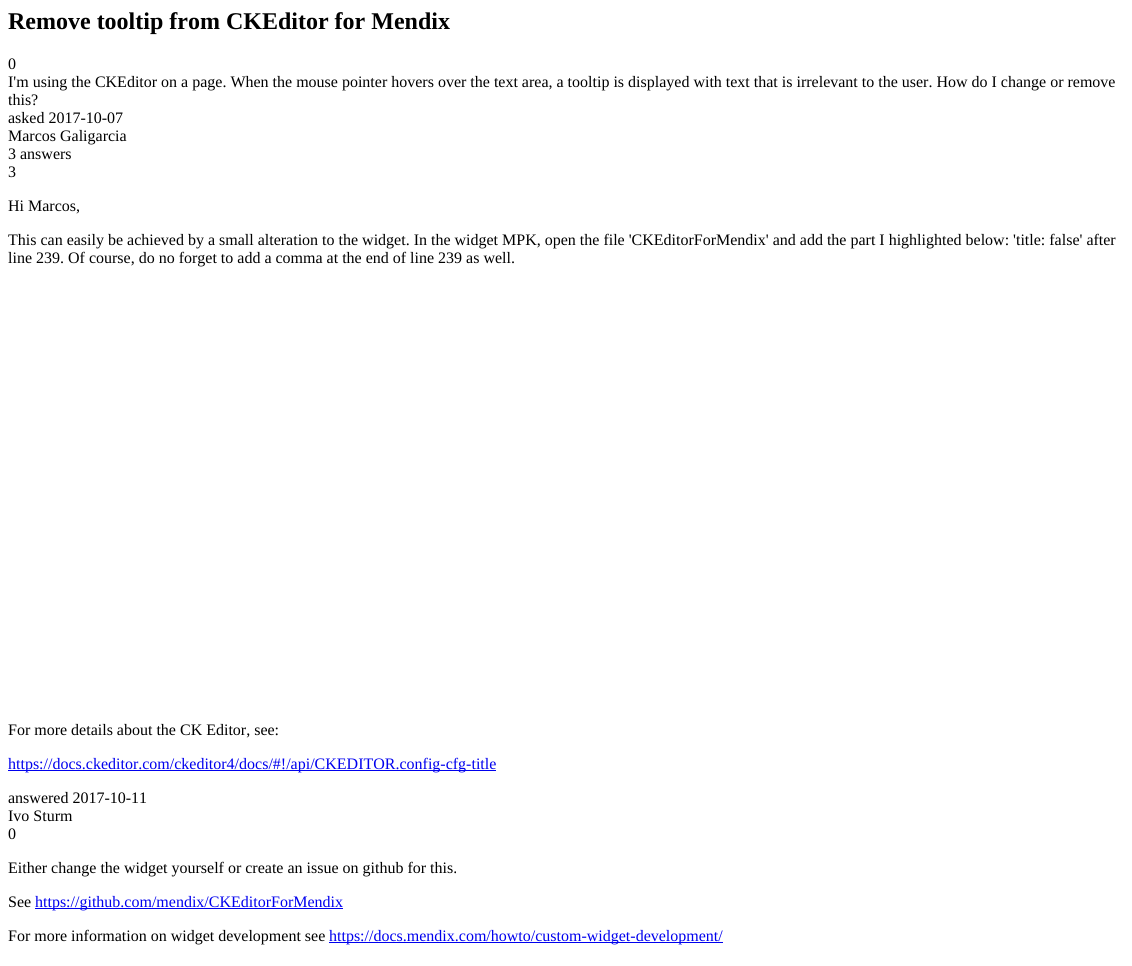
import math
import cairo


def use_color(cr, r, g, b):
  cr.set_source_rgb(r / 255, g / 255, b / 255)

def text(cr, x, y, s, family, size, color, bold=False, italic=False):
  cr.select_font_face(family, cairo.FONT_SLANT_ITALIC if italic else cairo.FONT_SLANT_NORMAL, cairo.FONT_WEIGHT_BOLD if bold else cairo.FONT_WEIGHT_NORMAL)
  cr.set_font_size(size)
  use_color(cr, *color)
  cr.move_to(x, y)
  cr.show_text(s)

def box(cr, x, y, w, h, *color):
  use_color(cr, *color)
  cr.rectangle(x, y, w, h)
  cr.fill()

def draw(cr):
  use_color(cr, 255, 255, 255)
  cr.paint()
  box(cr, 8, 770, 488, 1, 0, 0, 238)
  box(cr, 35, 908, 308, 1, 0, 0, 238)
  box(cr, 329, 942, 394, 1, 0, 0, 238)
  text(cr, 8, 29, "Remove tooltip from CKEditor for Mendix", "Liberation Serif", 24, (0, 0, 0), bold=True)
  text(cr, 8, 69, "0", "Liberation Serif", 16, (0, 0, 0))
  text(cr, 8, 87, "I'm using the CKEditor on a page. When the mouse pointer hovers over the text area, a tooltip is displayed with text that is irrelevant to the user. How do I change or remove", "Liberation Serif", 16, (0, 0, 0))
  text(cr, 8, 105, "this?", "Liberation Serif", 16, (0, 0, 0))
  text(cr, 8, 123, "asked 2017-10-07", "Liberation Serif", 16, (0, 0, 0))
  text(cr, 8, 141, "Marcos Galigarcia", "Liberation Serif", 16, (0, 0, 0))
  text(cr, 8, 159, "3 answers", "Liberation Serif", 16, (0, 0, 0))
  text(cr, 8, 177, "3", "Liberation Serif", 16, (0, 0, 0))
  text(cr, 8, 211, "Hi Marcos,", "Liberation Serif", 16, (0, 0, 0))
  text(cr, 8, 245, "This can easily be achieved by a small alteration to the widget. In the widget MPK, open the file 'CKEditorForMendix' and add the part I highlighted below: 'title: false' after", "Liberation Serif", 16, (0, 0, 0))
  text(cr, 8, 263, "line 239. Of course, do no forget to add a comma at the end of line 239 as well.", "Liberation Serif", 16, (0, 0, 0))
  text(cr, 8, 735, "For more details about the CK Editor, see:", "Liberation Serif", 16, (0, 0, 0))
  text(cr, 8, 769, "https://docs.ckeditor.com/ckeditor4/docs/#!/api/CKEDITOR.config-cfg-title", "Liberation Serif", 16, (0, 0, 238))
  text(cr, 8, 803, "answered 2017-10-11", "Liberation Serif", 16, (0, 0, 0))
  text(cr, 8, 821, "Ivo Sturm", "Liberation Serif", 16, (0, 0, 0))
  text(cr, 8, 839, "0", "Liberation Serif", 16, (0, 0, 0))
  text(cr, 8, 873, "Either change the widget yourself or create an issue on github for this.", "Liberation Serif", 16, (0, 0, 0))
  text(cr, 8, 907, "See", "Liberation Serif", 16, (0, 0, 0))
  text(cr, 35, 907, "https://github.com/mendix/CKEditorForMendix", "Liberation Serif", 16, (0, 0, 238))
  text(cr, 8, 941, "For more information on widget development see", "Liberation Serif", 16, (0, 0, 0))
  text(cr, 329, 941, "https://docs.mendix.com/howto/custom-widget-development/", "Liberation Serif", 16, (0, 0, 238))


surface = cairo.ImageSurface(cairo.FORMAT_RGB24, 1132, 966)
cr = cairo.Context(surface)
options = cairo.FontOptions()
options.set_hint_metrics(cairo.HINT_METRICS_OFF)
options.set_hint_style(cairo.HINT_STYLE_NONE)
cr.set_font_options(options)
cr.set_miter_limit(4)
draw(cr)
surface.write_to_png("out.png")
